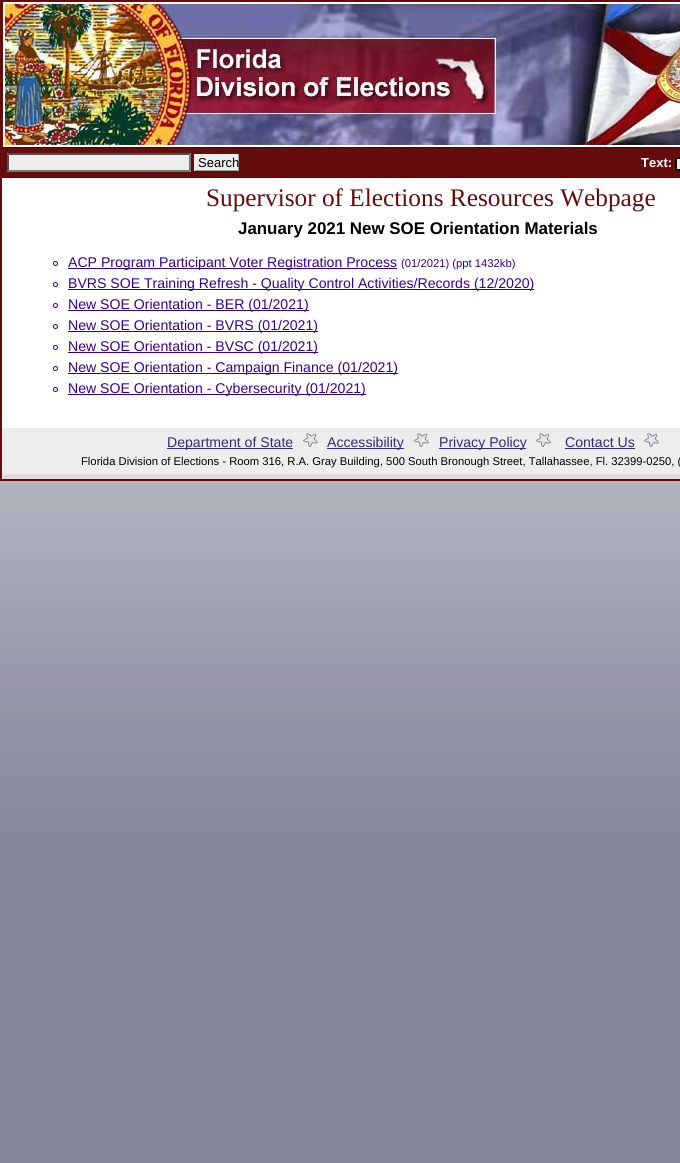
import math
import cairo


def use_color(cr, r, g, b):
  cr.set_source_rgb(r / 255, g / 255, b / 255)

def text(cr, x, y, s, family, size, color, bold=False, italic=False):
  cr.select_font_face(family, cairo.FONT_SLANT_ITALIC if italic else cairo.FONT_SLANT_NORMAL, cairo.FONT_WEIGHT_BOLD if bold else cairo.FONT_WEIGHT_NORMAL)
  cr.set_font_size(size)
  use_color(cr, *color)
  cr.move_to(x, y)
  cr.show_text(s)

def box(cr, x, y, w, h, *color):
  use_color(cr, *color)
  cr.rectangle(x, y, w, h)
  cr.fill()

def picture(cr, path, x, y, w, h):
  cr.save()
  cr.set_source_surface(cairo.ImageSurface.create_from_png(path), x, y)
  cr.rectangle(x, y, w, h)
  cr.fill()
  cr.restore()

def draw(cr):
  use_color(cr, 130, 132, 153)
  cr.paint()
  picture(cr, "img_01.png", 0, 481, 680, 351)
  cr.rectangle(1, 1, 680, 479)
  use_color(cr, 101, 12, 13)
  cr.stroke()
  box(cr, 2, 2, 1, 145, 101, 12, 13)
  picture(cr, "img_02.png", 3, 2, 677, 145)
  box(cr, 2, 147, 678, 1, 64, 8, 9)
  box(cr, 2, 177, 678, 1, 64, 8, 9)
  box(cr, 2, 148, 678, 29, 101, 12, 13)
  box(cr, 7, 153, 184, 19, 237, 237, 237)
  use_color(cr, 79, 79, 79)
  cr.new_path()
  cr.move_to(7, 153)
  cr.line_to(191, 153)
  cr.line_to(189, 155)
  cr.line_to(9, 155)
  cr.close_path()
  cr.fill()
  use_color(cr, 118, 118, 118)
  cr.new_path()
  cr.move_to(191, 153)
  cr.line_to(191, 172)
  cr.line_to(189, 170)
  cr.line_to(189, 155)
  cr.close_path()
  cr.fill()
  cr.new_path()
  cr.move_to(191, 172)
  cr.line_to(7, 172)
  cr.line_to(9, 170)
  cr.line_to(189, 170)
  cr.close_path()
  cr.fill()
  use_color(cr, 79, 79, 79)
  cr.new_path()
  cr.move_to(7, 172)
  cr.line_to(7, 153)
  cr.line_to(9, 155)
  cr.line_to(9, 170)
  cr.close_path()
  cr.fill()
  box(cr, 195, 154, 43, 16, 237, 237, 237)
  box(cr, 238, 154, 1, 17, 159, 159, 159)
  box(cr, 194, 170, 45, 1, 159, 159, 159)
  box(cr, 194, 154, 1, 17, 238, 238, 238)
  use_color(cr, 237, 237, 237)
  cr.rectangle(676, 158, 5, 12)
  cr.fill_preserve()
  use_color(cr, 0, 0, 0)
  cr.stroke()
  box(cr, 2, 178, 678, 250, 255, 255, 255)
  box(cr, 2, 474, 678, 5, 225, 220, 217)
  cr.arc(55.5, 263.5, 2, 0, 2 * math.pi)
  use_color(cr, 51, 0, 153)
  cr.set_line_width(1)
  cr.stroke()
  box(cr, 68, 268, 329, 1, 51, 0, 153)
  cr.arc(55.5, 284.5, 2, 0, 2 * math.pi)
  cr.stroke()
  box(cr, 68, 289, 466, 1, 51, 0, 153)
  cr.arc(55.5, 305.5, 2, 0, 2 * math.pi)
  cr.stroke()
  box(cr, 68, 310, 241, 1, 51, 0, 153)
  cr.arc(55.5, 326.5, 2, 0, 2 * math.pi)
  cr.stroke()
  box(cr, 68, 331, 250, 1, 51, 0, 153)
  cr.arc(55.5, 347.5, 2, 0, 2 * math.pi)
  cr.stroke()
  box(cr, 68, 352, 250, 1, 51, 0, 153)
  cr.arc(55.5, 368.5, 2, 0, 2 * math.pi)
  cr.stroke()
  box(cr, 68, 373, 330, 1, 51, 0, 153)
  cr.arc(55.5, 389.5, 2, 0, 2 * math.pi)
  cr.stroke()
  box(cr, 68, 394, 298, 1, 51, 0, 153)
  box(cr, 2, 428, 678, 46, 237, 237, 237)
  box(cr, 167, 448, 126, 1, 53, 42, 118)
  picture(cr, "img_03.png", 303, 433, 15, 14)
  box(cr, 327, 448, 77, 1, 53, 42, 118)
  picture(cr, "img_03.png", 414, 433, 15, 14)
  box(cr, 439, 448, 87, 1, 53, 42, 118)
  picture(cr, "img_03.png", 536, 433, 15, 14)
  box(cr, 565, 448, 70, 1, 53, 42, 118)
  picture(cr, "img_03.png", 644, 433, 15, 14)
  text(cr, 198, 167, "Search", "Liberation Sans", 13, (0, 0, 0))
  text(cr, 641, 167, "Text:", "Liberation Sans", 13, (255, 255, 255), bold=True)
  text(cr, 206, 206, "Supervisor of Elections Resources Webpage", "Liberation Serif", 25.3, (101, 12, 13))
  text(cr, 238, 234, "January 2021 New SOE Orientation Materials", "Liberation Sans", 16.9, (0, 0, 0), bold=True)
  text(cr, 68, 267, "ACP Program Participant Voter Registration Process", "Liberation Sans", 14.1, (51, 0, 153))
  text(cr, 401, 267, "(01/2021) (ppt 1432kb)", "Liberation Sans", 11.25, (51, 0, 153))
  text(cr, 68, 288, "BVRS SOE Training Refresh - Quality Control Activities/Records (12/2020)", "Liberation Sans", 14.1, (51, 0, 153))
  text(cr, 68, 309, "New SOE Orientation - BER (01/2021)", "Liberation Sans", 14.1, (51, 0, 153))
  text(cr, 68, 330, "New SOE Orientation - BVRS (01/2021)", "Liberation Sans", 14.1, (51, 0, 153))
  text(cr, 68, 351, "New SOE Orientation - BVSC (01/2021)", "Liberation Sans", 14.1, (51, 0, 153))
  text(cr, 68, 372, "New SOE Orientation - Campaign Finance (01/2021)", "Liberation Sans", 14.1, (51, 0, 153))
  text(cr, 68, 393, "New SOE Orientation - Cybersecurity (01/2021)", "Liberation Sans", 14.1, (51, 0, 153))
  text(cr, 167, 447, "Department of State", "Liberation Sans", 14.1, (53, 42, 118))
  text(cr, 327, 447, "Accessibility", "Liberation Sans", 14.1, (53, 42, 118))
  text(cr, 439, 447, "Privacy Policy", "Liberation Sans", 14.1, (53, 42, 118))
  text(cr, 565, 447, "Contact Us", "Liberation Sans", 14.1, (53, 42, 118))
  text(cr, 81, 465, "Florida Division of Elections - Room 316, R.A. Gray Building, 500 South Bronough Street, Tallahassee, Fl. 32399-0250, (", "Liberation Sans", 11.25, (0, 0, 0))


surface = cairo.ImageSurface(cairo.FORMAT_RGB24, 680, 1163)
cr = cairo.Context(surface)
options = cairo.FontOptions()
options.set_hint_metrics(cairo.HINT_METRICS_OFF)
options.set_hint_style(cairo.HINT_STYLE_NONE)
cr.set_font_options(options)
cr.set_miter_limit(4)
draw(cr)
surface.write_to_png("out.png")
